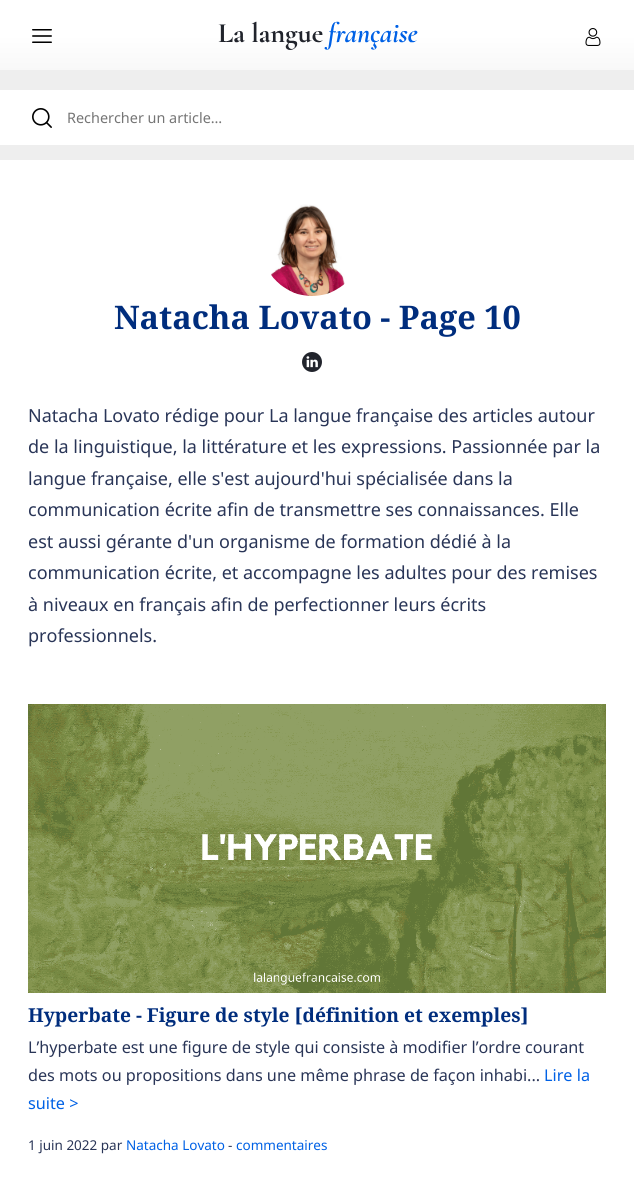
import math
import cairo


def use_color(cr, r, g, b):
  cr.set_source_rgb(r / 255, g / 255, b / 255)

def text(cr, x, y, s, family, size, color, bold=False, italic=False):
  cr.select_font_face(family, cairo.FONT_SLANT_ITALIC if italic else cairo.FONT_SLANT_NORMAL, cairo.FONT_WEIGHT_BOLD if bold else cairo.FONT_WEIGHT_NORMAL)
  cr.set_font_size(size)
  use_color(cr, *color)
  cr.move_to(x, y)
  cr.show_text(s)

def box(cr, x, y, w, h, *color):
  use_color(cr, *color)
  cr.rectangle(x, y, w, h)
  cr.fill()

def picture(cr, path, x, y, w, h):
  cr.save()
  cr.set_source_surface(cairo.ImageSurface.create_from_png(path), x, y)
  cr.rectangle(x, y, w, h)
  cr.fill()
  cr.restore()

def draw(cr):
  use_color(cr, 238, 238, 238)
  cr.paint()
  gradient = cairo.LinearGradient(317, 70, 317, 0)
  gradient.add_color_stop_rgba(0, 0.973, 0.973, 0.973, 1)
  gradient.add_color_stop_rgba(0.5, 1, 1, 1, 1)
  cr.set_source(gradient)
  cr.rectangle(0, 0, 634, 70)
  cr.fill()
  picture(cr, "img_01.png", 32, 29, 20, 14)
  picture(cr, "img_02.png", 218, 21, 200, 29)
  picture(cr, "img_03.png", 585, 28, 16, 18)
  box(cr, 0, 90, 634, 55, 255, 255, 255)
  picture(cr, "img_04.png", 32, 108, 20, 20)
  box(cr, 0, 160, 634, 1037, 255, 255, 255)
  picture(cr, "img_05.png", 271, 204, 74, 92)
  picture(cr, "img_06.png", 302, 352, 20, 20)
  picture(cr, "img_07.png", 28, 704, 578, 289)
  text(cr, 67, 123, "Rechercher un article…", "Noto Sans", 14.4, (117, 117, 117))
  text(cr, 114, 329, "Natacha Lovato - Page 10", "Noto Serif", 32.5, (0, 45, 125), bold=True)
  text(cr, 28, 422, "Natacha Lovato rédige pour La langue française des articles autour", "Noto Sans", 18, (41, 53, 87))
  text(cr, 28, 453, "de la linguistique, la littérature et les expressions. Passionnée par la", "Noto Sans", 18, (41, 53, 87))
  text(cr, 28, 485, "langue française, elle s'est aujourd'hui spécialisée dans la", "Noto Sans", 18, (41, 53, 87))
  text(cr, 28, 516, "communication écrite afin de transmettre ses connaissances. Elle", "Noto Sans", 18, (41, 53, 87))
  text(cr, 28, 548, "est aussi gérante d'un organisme de formation dédié à la", "Noto Sans", 18, (41, 53, 87))
  text(cr, 28, 579, "communication écrite, et accompagne les adultes pour des remises", "Noto Sans", 18, (41, 53, 87))
  text(cr, 28, 611, "à niveaux en français afin de perfectionner leurs écrits", "Noto Sans", 18, (41, 53, 87))
  text(cr, 28, 642, "professionnels.", "Noto Sans", 18, (41, 53, 87))
  text(cr, 28, 1022, "Hyperbate - Figure de style [définition et exemples]", "Noto Serif", 19.2, (0, 45, 125), bold=True)
  text(cr, 28, 1053, "L’hyperbate est une figure de style qui consiste à modifier l’ordre courant", "Noto Sans", 16.2, (41, 53, 87))
  text(cr, 28, 1081, "des mots ou propositions dans une même phrase de façon inhabi...", "Noto Sans", 16.2, (41, 53, 87))
  text(cr, 544, 1081, "Lire la", "Noto Sans", 16.2, (0, 97, 229))
  text(cr, 28, 1109, "suite >", "Noto Sans", 16.2, (0, 97, 229))
  text(cr, 28, 1150, "1 juin 2022 par", "Noto Sans", 13.5, (41, 53, 87))
  text(cr, 126, 1150, "Natacha Lovato", "Noto Sans", 13.5, (0, 97, 229))
  text(cr, 228, 1150, "-", "Noto Sans", 13.5, (41, 53, 87))
  text(cr, 236, 1150, "commentaires", "Noto Sans", 13.5, (0, 97, 229))


surface = cairo.ImageSurface(cairo.FORMAT_RGB24, 634, 1197)
cr = cairo.Context(surface)
options = cairo.FontOptions()
options.set_hint_metrics(cairo.HINT_METRICS_OFF)
options.set_hint_style(cairo.HINT_STYLE_NONE)
cr.set_font_options(options)
cr.set_miter_limit(4)
draw(cr)
surface.write_to_png("out.png")
